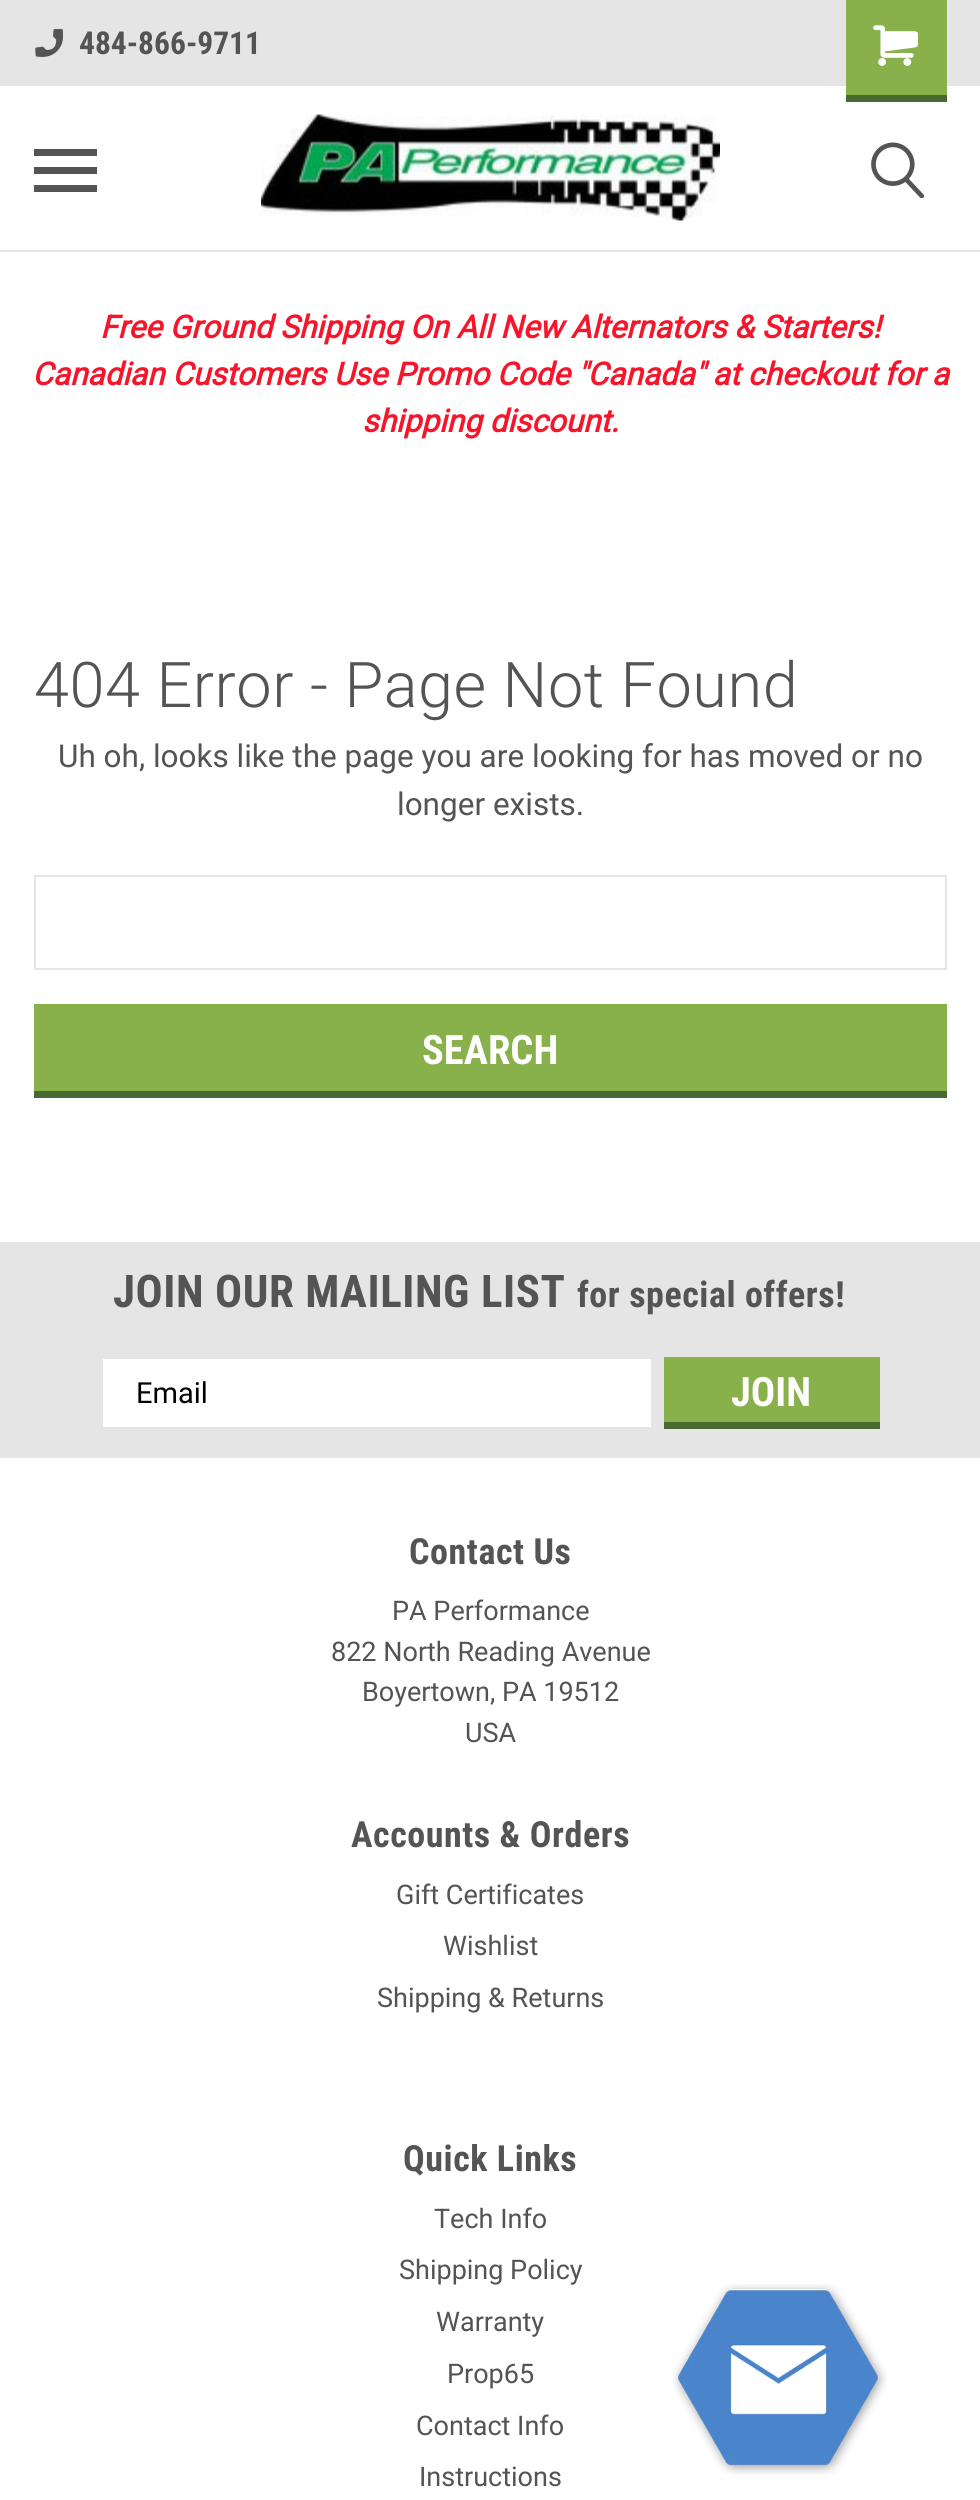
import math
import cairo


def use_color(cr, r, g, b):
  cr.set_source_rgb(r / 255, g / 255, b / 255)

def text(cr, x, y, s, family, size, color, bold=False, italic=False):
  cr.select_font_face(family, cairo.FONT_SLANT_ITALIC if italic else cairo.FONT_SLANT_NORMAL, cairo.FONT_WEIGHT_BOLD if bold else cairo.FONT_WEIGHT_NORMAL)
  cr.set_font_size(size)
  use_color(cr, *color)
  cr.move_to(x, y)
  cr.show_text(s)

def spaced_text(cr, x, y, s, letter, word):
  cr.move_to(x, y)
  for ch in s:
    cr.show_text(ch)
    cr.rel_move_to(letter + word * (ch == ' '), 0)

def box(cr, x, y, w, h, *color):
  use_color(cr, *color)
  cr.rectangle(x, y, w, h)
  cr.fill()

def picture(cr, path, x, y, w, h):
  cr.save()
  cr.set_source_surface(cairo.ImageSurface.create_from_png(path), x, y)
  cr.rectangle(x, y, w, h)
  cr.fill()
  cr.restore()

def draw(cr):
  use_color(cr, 255, 255, 255)
  cr.paint()
  box(cr, 0, 250, 980, 2, 229, 229, 229)
  box(cr, 0, 0, 980, 86, 229, 229, 229)
  picture(cr, "img_01.png", 35, 29, 28, 28)
  box(cr, 846, 0, 101, 95, 136, 176, 75)
  box(cr, 846, 95, 101, 7, 71, 106, 48)
  picture(cr, "img_02.png", 873, 25, 45, 41)
  box(cr, 34, 167, 63, 7, 84, 84, 84)
  box(cr, 34, 149, 63, 7, 84, 84, 84)
  box(cr, 34, 185, 63, 7, 84, 84, 84)
  picture(cr, "img_03.png", 261, 114, 459, 107)
  picture(cr, "img_04.png", 871, 142, 54, 56)
  cr.rectangle(35, 876, 911, 93)
  use_color(cr, 229, 229, 229)
  cr.stroke()
  box(cr, 34, 1004, 913, 87, 136, 176, 75)
  box(cr, 34, 1091, 913, 7, 71, 106, 48)
  box(cr, 0, 1242, 980, 216, 229, 229, 229)
  box(cr, 103, 1359, 548, 68, 255, 255, 255)
  box(cr, 664, 1357, 216, 65, 136, 176, 75)
  box(cr, 664, 1422, 216, 7, 71, 106, 48)
  picture(cr, "img_05.png", 673, 2284, 214, 191)
  text(cr, 79, 54, "484-866-9711", "Roboto Condensed", 31.5, (84, 84, 84), bold=True)
  text(cr, 100, 338, "Free Ground Shipping On All New Alternators & Starters!", "Roboto", 31.5, (245, 22, 43), bold=True, italic=True)
  text(cr, 32, 385, "Canadian Customers Use Promo Code \"Canada\" at checkout for a", "Roboto", 31.5, (245, 22, 43), bold=True, italic=True)
  text(cr, 362, 432, "shipping discount.", "Roboto", 31.5, (245, 22, 43), bold=True, italic=True)
  cr.select_font_face("Roboto Light")
  cr.set_font_size(63)
  use_color(cr, 84, 84, 84)
  spaced_text(cr, 34, 707, "404 Error - Page Not Found", 0.55, 0)
  text(cr, 58, 767, "Uh oh, looks like the page you are looking for has moved or no", "Roboto", 31.5, (84, 84, 84))
  text(cr, 397, 815, "longer exists.", "Roboto", 31.5, (84, 84, 84))
  text(cr, 422, 1064, "SEARCH", "Roboto Condensed", 40.5, (255, 255, 255), bold=True)
  cr.set_font_size(45)
  use_color(cr, 84, 84, 84)
  spaced_text(cr, 113, 1307, "JOIN OUR MAILING LIST", 0.55, 0)
  cr.set_font_size(36)
  spaced_text(cr, 577, 1307, "for special offers!", 0.55, 0)
  text(cr, 136, 1403, "Email", "Roboto", 29, (0, 0, 0))
  text(cr, 731, 1406, "JOIN", "Roboto Condensed", 40.5, (255, 255, 255), bold=True)
  cr.set_font_size(36)
  use_color(cr, 84, 84, 84)
  spaced_text(cr, 409, 1564, "Contact Us", 0.55, 0)
  text(cr, 392, 1620, "PA Performance", "Roboto", 27, (84, 84, 84))
  text(cr, 331, 1661, "822 North Reading Avenue", "Roboto", 27, (84, 84, 84))
  text(cr, 362, 1701, "Boyertown, PA 19512", "Roboto", 27, (84, 84, 84))
  text(cr, 465, 1742, "USA", "Roboto", 27, (84, 84, 84))
  cr.select_font_face("Roboto Condensed", cairo.FONT_SLANT_NORMAL, cairo.FONT_WEIGHT_BOLD)
  cr.set_font_size(36)
  spaced_text(cr, 351, 1847, "Accounts & Orders", 0.55, 0)
  text(cr, 396, 1904, "Gift Certificates", "Roboto", 27, (84, 84, 84))
  text(cr, 443, 1955, "Wishlist", "Roboto", 27, (84, 84, 84))
  text(cr, 377, 2007, "Shipping & Returns", "Roboto", 27, (84, 84, 84))
  cr.select_font_face("Roboto Condensed", cairo.FONT_SLANT_NORMAL, cairo.FONT_WEIGHT_BOLD)
  cr.set_font_size(36)
  spaced_text(cr, 403, 2171, "Quick Links", 0.55, 0)
  text(cr, 434, 2228, "Tech Info", "Roboto", 27, (84, 84, 84))
  text(cr, 399, 2279, "Shipping Policy", "Roboto", 27, (84, 84, 84))
  text(cr, 436, 2331, "Warranty", "Roboto", 27, (84, 84, 84))
  text(cr, 447, 2383, "Prop65", "Roboto", 27, (84, 84, 84))
  text(cr, 416, 2435, "Contact Info", "Roboto", 27, (84, 84, 84))
  text(cr, 419, 2486, "Instructions", "Roboto", 27, (84, 84, 84))


surface = cairo.ImageSurface(cairo.FORMAT_RGB24, 980, 2500)
cr = cairo.Context(surface)
options = cairo.FontOptions()
options.set_hint_metrics(cairo.HINT_METRICS_OFF)
options.set_hint_style(cairo.HINT_STYLE_NONE)
cr.set_font_options(options)
cr.set_miter_limit(4)
draw(cr)
surface.write_to_png("out.png")
